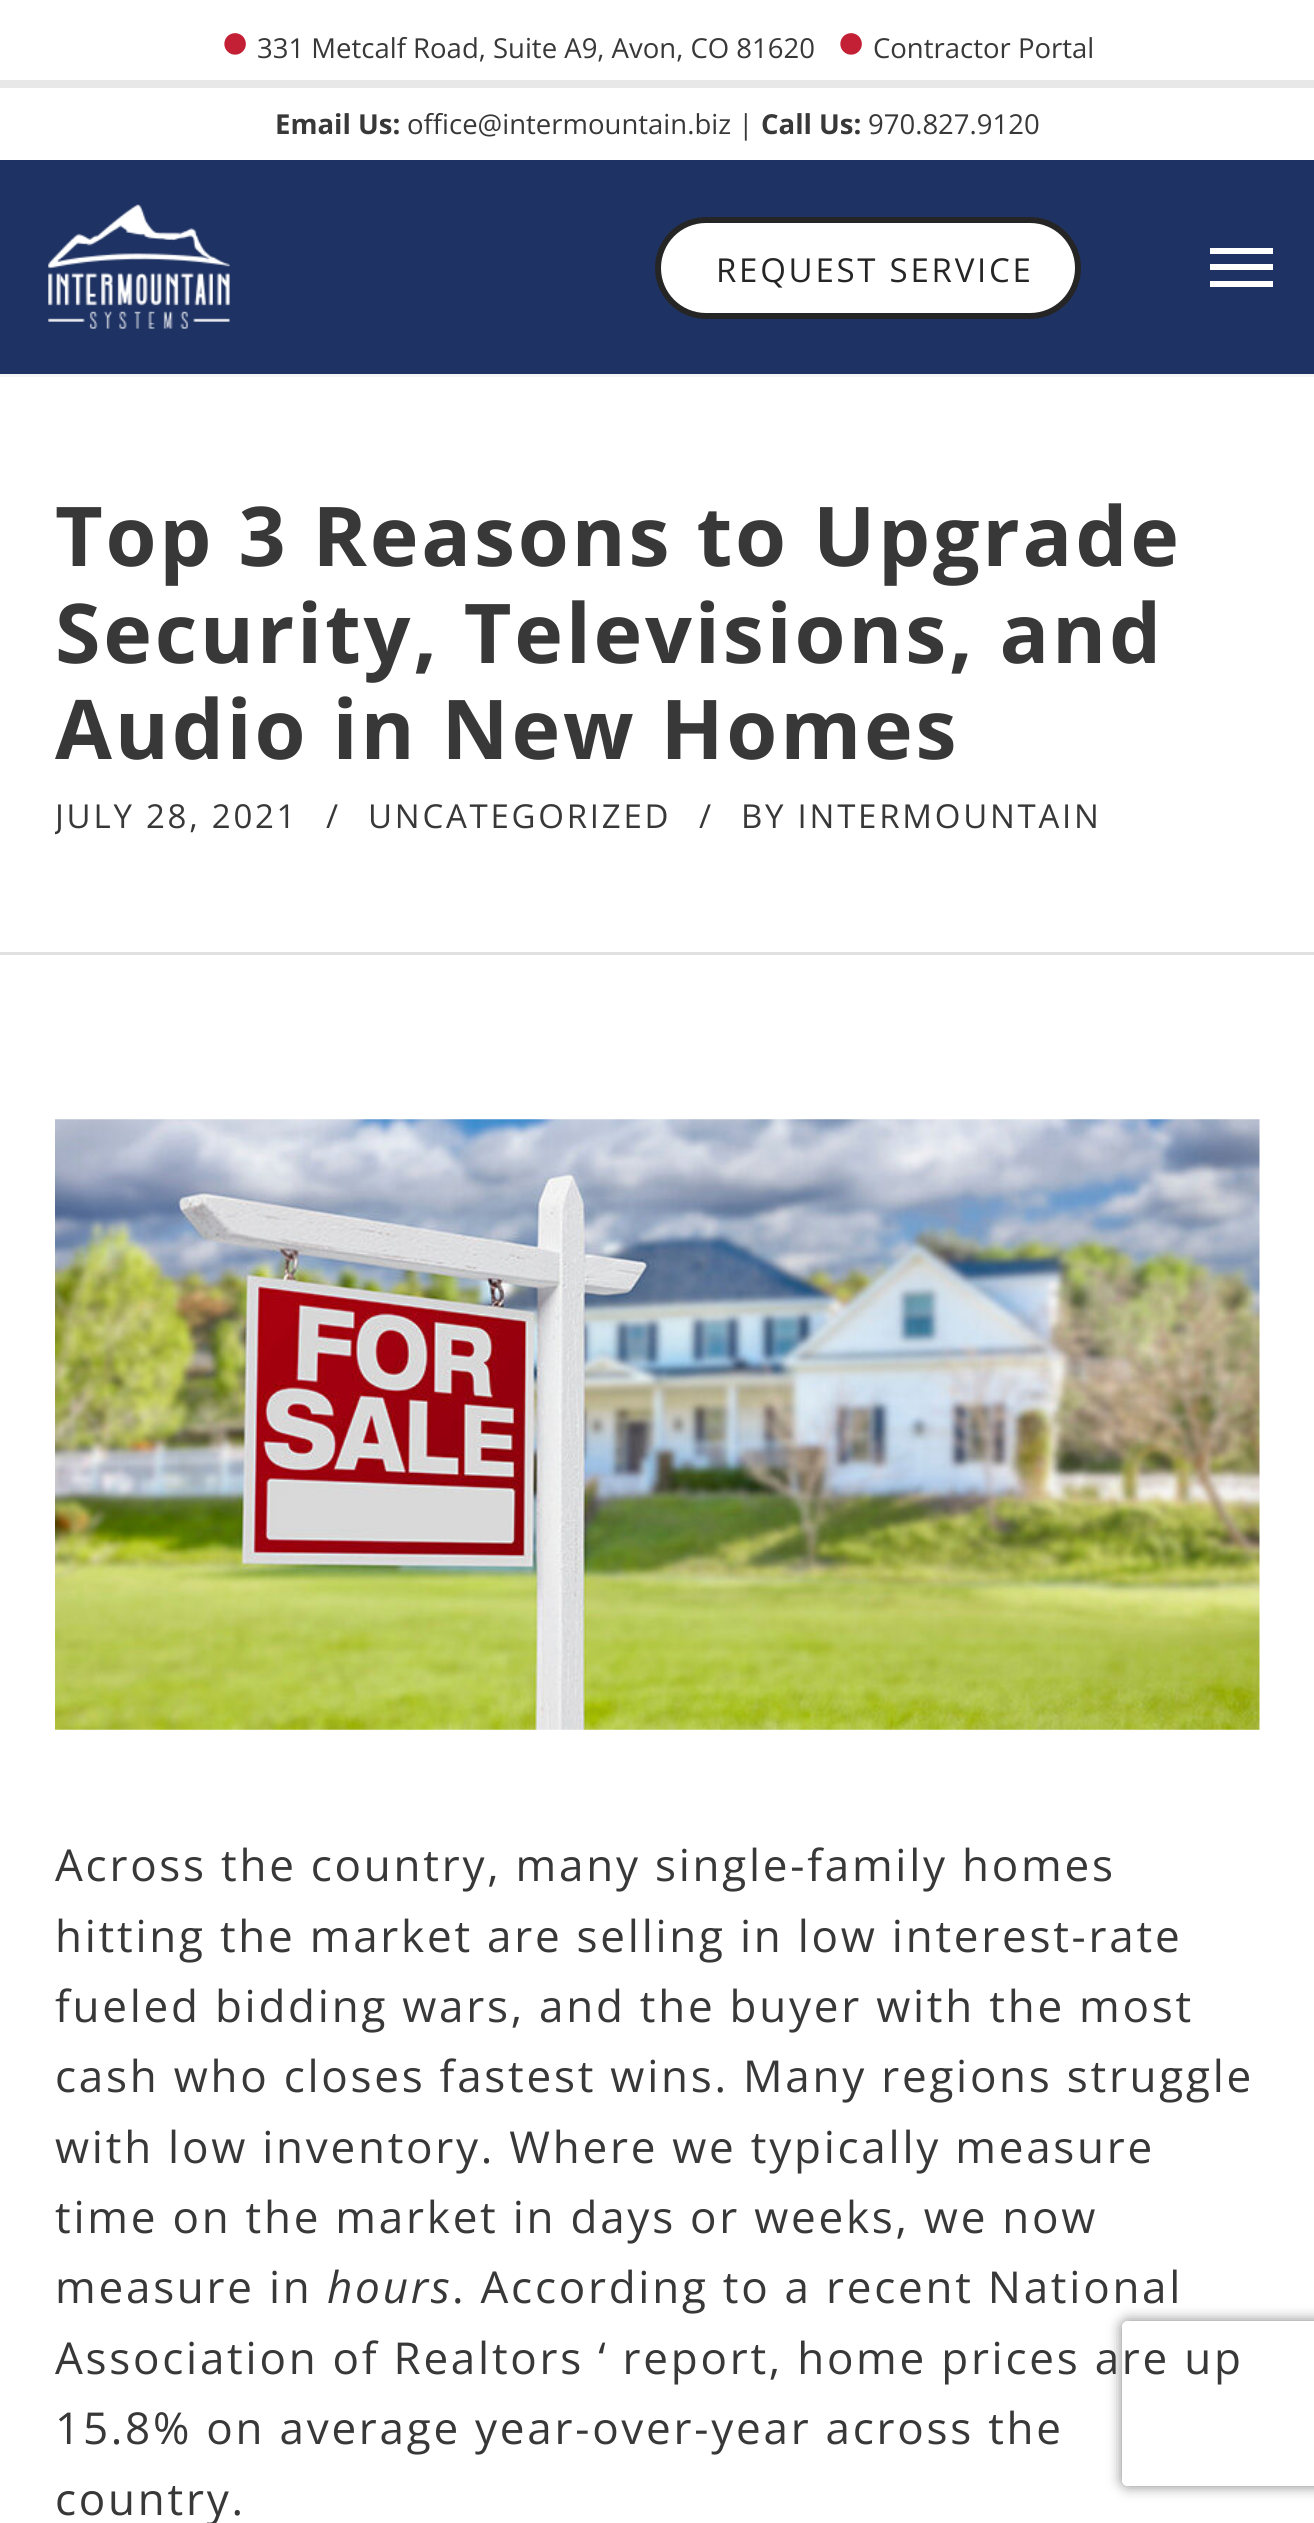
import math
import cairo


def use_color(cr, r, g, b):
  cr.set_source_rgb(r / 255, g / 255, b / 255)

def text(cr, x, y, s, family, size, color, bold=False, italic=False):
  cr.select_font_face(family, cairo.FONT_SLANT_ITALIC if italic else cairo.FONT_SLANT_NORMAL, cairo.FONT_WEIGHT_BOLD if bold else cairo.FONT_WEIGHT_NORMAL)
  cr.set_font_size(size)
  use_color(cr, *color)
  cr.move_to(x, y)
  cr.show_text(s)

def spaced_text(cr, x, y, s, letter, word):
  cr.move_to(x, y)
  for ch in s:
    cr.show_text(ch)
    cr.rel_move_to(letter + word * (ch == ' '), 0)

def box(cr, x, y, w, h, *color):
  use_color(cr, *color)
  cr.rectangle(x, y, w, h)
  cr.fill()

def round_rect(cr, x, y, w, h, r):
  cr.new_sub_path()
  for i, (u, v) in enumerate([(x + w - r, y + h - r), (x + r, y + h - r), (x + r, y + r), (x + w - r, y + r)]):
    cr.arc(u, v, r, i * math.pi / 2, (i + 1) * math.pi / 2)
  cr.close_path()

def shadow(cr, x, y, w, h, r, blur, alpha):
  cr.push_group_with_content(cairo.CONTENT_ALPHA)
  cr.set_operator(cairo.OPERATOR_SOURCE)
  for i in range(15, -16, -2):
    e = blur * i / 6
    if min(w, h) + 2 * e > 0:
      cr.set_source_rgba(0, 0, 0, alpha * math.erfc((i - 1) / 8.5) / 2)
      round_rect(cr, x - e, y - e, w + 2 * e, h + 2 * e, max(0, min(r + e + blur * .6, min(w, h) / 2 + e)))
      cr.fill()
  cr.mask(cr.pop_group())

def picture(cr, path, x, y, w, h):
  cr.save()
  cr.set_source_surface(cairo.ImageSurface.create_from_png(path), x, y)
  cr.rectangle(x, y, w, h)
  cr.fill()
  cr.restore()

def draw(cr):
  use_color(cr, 255, 255, 255)
  cr.paint()
  box(cr, 0, 374, 1314, 3, 245, 245, 245)
  box(cr, 0, 80, 1314, 8, 232, 232, 232)
  box(cr, 0, 160, 1314, 214, 30, 50, 99)
  use_color(cr, 255, 255, 255)
  round_rect(cr, 658, 220, 420, 96, 48)
  cr.fill_preserve()
  use_color(cr, 37, 37, 37)
  cr.set_line_width(6)
  cr.stroke()
  picture(cr, "img_01.png", 48, 204, 182, 125)
  box(cr, 1210, 248, 63, 6, 255, 255, 255)
  box(cr, 1210, 264, 63, 6, 255, 255, 255)
  box(cr, 1210, 281, 63, 6, 255, 255, 255)
  box(cr, 0, 952, 1314, 3, 225, 225, 225)
  picture(cr, "img_02.png", 55, 1119, 1205, 611)
  cr.save()
  cr.set_fill_rule(cairo.FILL_RULE_EVEN_ODD)
  cr.new_path()
  cr.move_to(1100, 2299)
  cr.line_to(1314, 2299)
  cr.line_to(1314, 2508)
  cr.line_to(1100, 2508)
  cr.close_path()
  cr.move_to(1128, 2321)
  cr.line_to(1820, 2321)
  cr.curve_to(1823.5, 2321, 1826, 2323.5, 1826, 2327)
  cr.line_to(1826, 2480)
  cr.curve_to(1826, 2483.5, 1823.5, 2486, 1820, 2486)
  cr.line_to(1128, 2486)
  cr.curve_to(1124.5, 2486, 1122, 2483.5, 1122, 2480)
  cr.line_to(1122, 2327)
  cr.curve_to(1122, 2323.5, 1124.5, 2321, 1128, 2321)
  cr.close_path()
  cr.clip()
  use_color(cr, 128, 128, 128)
  shadow(cr, 1122, 2321, 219, 165, 6, 7, 1)
  cr.restore()
  text(cr, 220, 58, "●", "Liberation Sans", 50, (195, 32, 53))
  text(cr, 257, 58, "331 Metcalf Road, Suite A9, Avon, CO 81620", "Open Sans", 27.5, (56, 56, 56))
  text(cr, 836, 58, "●", "Liberation Sans", 50, (195, 32, 53))
  text(cr, 873, 58, "Contractor Portal", "Open Sans", 27.5, (56, 56, 56))
  text(cr, 275, 134, "Email Us:", "Open Sans", 27.5, (56, 56, 56), bold=True)
  text(cr, 407, 134, "office@intermountain.biz |", "Open Sans", 27.5, (56, 56, 56))
  text(cr, 761, 134, "Call Us:", "Open Sans", 27.5, (56, 56, 56), bold=True)
  text(cr, 868, 134, "970.827.9120", "Open Sans", 27.5, (56, 56, 56))
  cr.set_font_size(33)
  use_color(cr, 37, 37, 37)
  spaced_text(cr, 716, 282, "REQUEST SERVICE", 2.75, 0)
  cr.select_font_face("Open Sans", cairo.FONT_SLANT_NORMAL, cairo.FONT_WEIGHT_BOLD)
  cr.set_font_size(82.5)
  use_color(cr, 56, 56, 56)
  spaced_text(cr, 55, 566, "Top 3 Reasons to Upgrade", 2.75, 0)
  spaced_text(cr, 55, 663, "Security, Televisions, and", 2.75, 0)
  spaced_text(cr, 55, 759, "Audio in New Homes", 2.75, 0)
  cr.save()
  cr.rectangle(55, 789, 1205, 53)
  cr.clip()
  cr.select_font_face("Open Sans")
  cr.set_font_size(33)
  spaced_text(cr, 55, 828, "JULY 28, 2021", 2.75, 0)
  cr.restore()
  cr.select_font_face("Open Sans")
  cr.set_font_size(33)
  spaced_text(cr, 326, 828, "/", 2.75, 0)
  spaced_text(cr, 368, 828, "UNCATEGORIZED", 2.75, 0)
  spaced_text(cr, 699, 828, "/", 2.75, 0)
  spaced_text(cr, 741, 828, "BY INTERMOUNTAIN", 2.75, 0)
  cr.set_font_size(44)
  spaced_text(cr, 55, 1881, "Across the country, many single-family homes", 2.75, 0)
  spaced_text(cr, 55, 1952, "hitting the market are selling in low interest-rate", 2.75, 0)
  spaced_text(cr, 55, 2022, "fueled bidding wars, and the buyer with the most", 2.75, 0)
  spaced_text(cr, 55, 2092, "cash who closes fastest wins. Many regions struggle", 2.75, 0)
  spaced_text(cr, 55, 2163, "with low inventory. Where we typically measure", 2.75, 0)
  spaced_text(cr, 55, 2233, "time on the market in days or weeks, we now", 2.75, 0)
  spaced_text(cr, 55, 2303, "measure in", 2.75, 0)
  cr.select_font_face("Open Sans", cairo.FONT_SLANT_ITALIC)
  spaced_text(cr, 327, 2303, "hours", 2.75, 0)
  cr.select_font_face("Open Sans")
  spaced_text(cr, 452, 2303, ". According to a recent National", 2.75, 0)
  spaced_text(cr, 55, 2374, "Association of Realtors ‘ report, home prices are up", 2.75, 0)
  spaced_text(cr, 55, 2444, "15.8% on average year-over-year across the", 2.75, 0)
  spaced_text(cr, 55, 2515, "country.", 2.75, 0)


surface = cairo.ImageSurface(cairo.FORMAT_RGB24, 1314, 2523)
cr = cairo.Context(surface)
options = cairo.FontOptions()
options.set_hint_metrics(cairo.HINT_METRICS_OFF)
options.set_hint_style(cairo.HINT_STYLE_NONE)
cr.set_font_options(options)
cr.set_miter_limit(4)
draw(cr)
surface.write_to_png("out.png")
